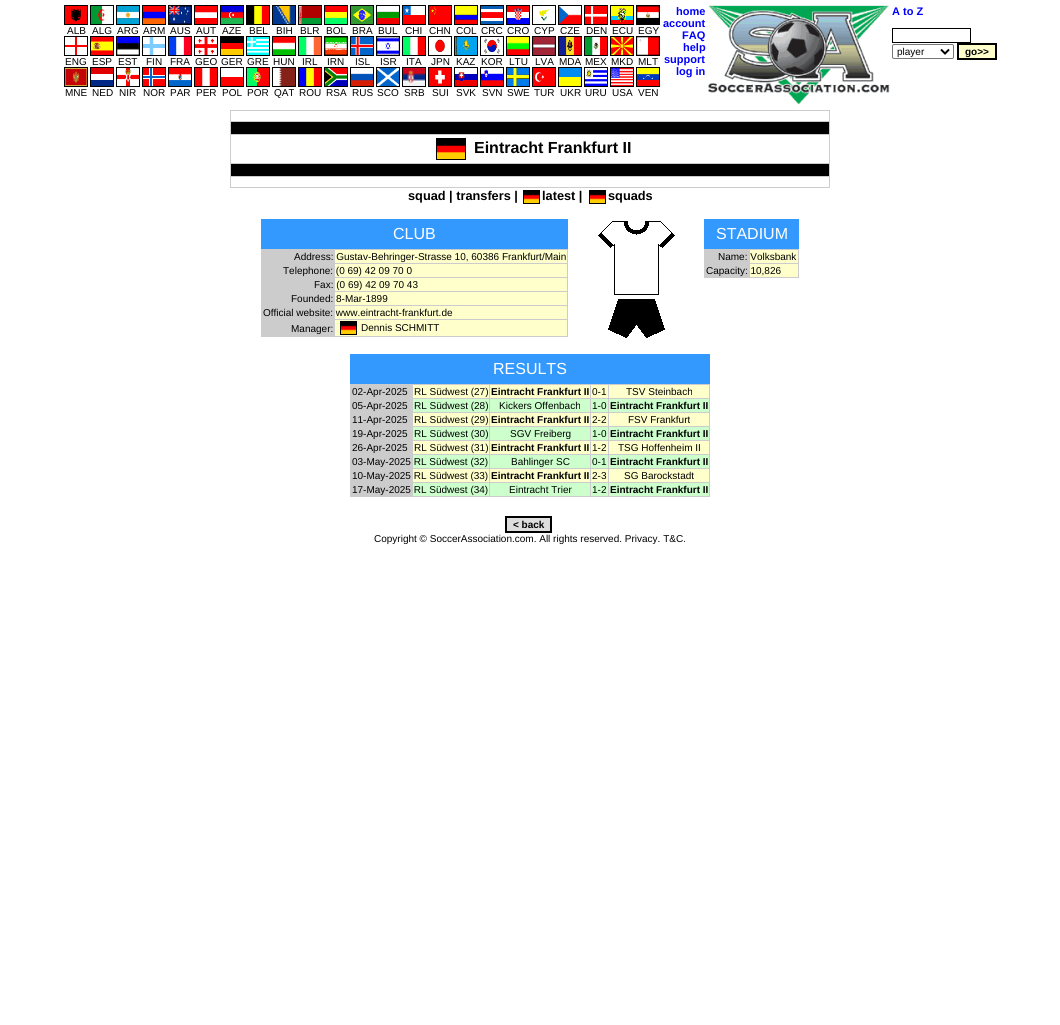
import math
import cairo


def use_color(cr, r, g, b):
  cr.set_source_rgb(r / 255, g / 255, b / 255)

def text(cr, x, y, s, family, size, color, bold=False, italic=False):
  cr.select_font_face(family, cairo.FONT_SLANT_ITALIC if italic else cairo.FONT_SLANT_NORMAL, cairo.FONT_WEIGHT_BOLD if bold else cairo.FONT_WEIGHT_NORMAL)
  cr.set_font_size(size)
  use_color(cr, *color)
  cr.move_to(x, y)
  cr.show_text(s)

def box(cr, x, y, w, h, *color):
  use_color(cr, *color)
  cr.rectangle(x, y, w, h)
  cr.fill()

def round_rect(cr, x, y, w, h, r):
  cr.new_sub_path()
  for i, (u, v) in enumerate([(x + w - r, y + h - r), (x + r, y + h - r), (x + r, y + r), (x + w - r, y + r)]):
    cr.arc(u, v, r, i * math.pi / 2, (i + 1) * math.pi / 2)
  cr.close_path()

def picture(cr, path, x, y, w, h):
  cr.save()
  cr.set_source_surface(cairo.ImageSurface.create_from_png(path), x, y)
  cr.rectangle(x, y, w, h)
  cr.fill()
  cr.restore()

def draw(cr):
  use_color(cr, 255, 255, 255)
  cr.paint()
  cr.rectangle(64.5, 5.5, 23, 19)
  use_color(cr, 0, 0, 0)
  cr.set_line_width(1)
  cr.stroke()
  picture(cr, "img_01.png", 65, 6, 22, 18)
  cr.rectangle(90.5, 5.5, 23, 19)
  cr.stroke()
  picture(cr, "img_02.png", 91, 6, 14, 18)
  cr.rectangle(116.5, 5.5, 23, 19)
  cr.stroke()
  picture(cr, "img_03.png", 117, 6, 22, 18)
  cr.rectangle(142.5, 5.5, 23, 19)
  cr.stroke()
  picture(cr, "img_04.png", 143, 6, 22, 18)
  cr.rectangle(168.5, 5.5, 23, 19)
  cr.stroke()
  picture(cr, "img_05.png", 169, 6, 22, 18)
  cr.rectangle(194.5, 5.5, 23, 19)
  cr.stroke()
  picture(cr, "img_06.png", 195, 6, 22, 18)
  cr.rectangle(220.5, 5.5, 23, 19)
  cr.stroke()
  picture(cr, "img_07.png", 221, 6, 22, 18)
  cr.rectangle(246.5, 5.5, 23, 19)
  cr.stroke()
  picture(cr, "img_08.png", 247, 6, 22, 18)
  cr.rectangle(272.5, 5.5, 23, 19)
  cr.stroke()
  picture(cr, "img_09.png", 273, 6, 22, 18)
  cr.rectangle(298.5, 5.5, 23, 19)
  cr.stroke()
  picture(cr, "img_10.png", 299, 6, 22, 18)
  cr.rectangle(324.5, 5.5, 23, 19)
  cr.stroke()
  picture(cr, "img_11.png", 325, 6, 22, 18)
  cr.rectangle(350.5, 5.5, 23, 19)
  cr.stroke()
  picture(cr, "img_12.png", 351, 6, 22, 18)
  cr.rectangle(376.5, 5.5, 23, 19)
  cr.stroke()
  picture(cr, "img_13.png", 377, 11, 22, 13)
  cr.rectangle(402.5, 5.5, 23, 19)
  cr.stroke()
  picture(cr, "img_14.png", 403, 6, 22, 18)
  cr.rectangle(428.5, 5.5, 23, 19)
  cr.stroke()
  picture(cr, "img_15.png", 429, 6, 22, 18)
  cr.rectangle(454.5, 5.5, 23, 19)
  cr.stroke()
  picture(cr, "img_16.png", 455, 6, 22, 18)
  cr.rectangle(480.5, 5.5, 23, 19)
  cr.stroke()
  picture(cr, "img_17.png", 481, 6, 22, 18)
  cr.rectangle(506.5, 5.5, 23, 19)
  cr.stroke()
  picture(cr, "img_18.png", 507, 6, 22, 18)
  cr.rectangle(532.5, 5.5, 23, 19)
  cr.stroke()
  picture(cr, "img_19.png", 539, 9, 11, 12)
  cr.rectangle(558.5, 5.5, 23, 19)
  cr.stroke()
  picture(cr, "img_20.png", 559, 6, 22, 18)
  cr.rectangle(584.5, 5.5, 23, 19)
  cr.stroke()
  picture(cr, "img_21.png", 585, 6, 22, 18)
  cr.rectangle(610.5, 5.5, 23, 19)
  cr.stroke()
  picture(cr, "img_22.png", 611, 6, 22, 18)
  cr.rectangle(636.5, 5.5, 23, 19)
  cr.stroke()
  picture(cr, "img_23.png", 637, 6, 22, 18)
  cr.rectangle(64.5, 36.5, 23, 19)
  cr.stroke()
  picture(cr, "img_24.png", 65, 37, 22, 18)
  cr.rectangle(90.5, 36.5, 23, 19)
  cr.stroke()
  picture(cr, "img_25.png", 91, 37, 22, 18)
  cr.rectangle(116.5, 36.5, 23, 19)
  cr.stroke()
  picture(cr, "img_26.png", 117, 37, 22, 18)
  cr.rectangle(142.5, 36.5, 23, 19)
  cr.stroke()
  picture(cr, "img_27.png", 143, 37, 22, 18)
  cr.rectangle(168.5, 36.5, 23, 19)
  cr.stroke()
  picture(cr, "img_28.png", 169, 37, 22, 18)
  cr.rectangle(194.5, 36.5, 23, 19)
  cr.stroke()
  picture(cr, "img_29.png", 195, 37, 22, 18)
  cr.rectangle(220.5, 36.5, 23, 19)
  cr.stroke()
  picture(cr, "img_30.png", 221, 37, 22, 18)
  cr.rectangle(246.5, 36.5, 23, 19)
  cr.stroke()
  picture(cr, "img_31.png", 247, 37, 22, 18)
  cr.rectangle(272.5, 36.5, 23, 19)
  cr.stroke()
  picture(cr, "img_32.png", 273, 37, 22, 18)
  cr.rectangle(298.5, 36.5, 23, 19)
  cr.stroke()
  picture(cr, "img_33.png", 299, 37, 22, 18)
  cr.rectangle(324.5, 36.5, 23, 19)
  cr.stroke()
  picture(cr, "img_34.png", 325, 37, 22, 18)
  cr.rectangle(350.5, 36.5, 23, 19)
  cr.stroke()
  picture(cr, "img_35.png", 351, 37, 22, 18)
  cr.rectangle(376.5, 36.5, 23, 19)
  cr.stroke()
  picture(cr, "img_36.png", 377, 37, 22, 18)
  cr.rectangle(402.5, 36.5, 23, 19)
  cr.stroke()
  picture(cr, "img_37.png", 403, 37, 22, 18)
  cr.rectangle(428.5, 36.5, 23, 19)
  cr.stroke()
  picture(cr, "img_38.png", 435, 39, 10, 13)
  cr.rectangle(454.5, 36.5, 23, 19)
  cr.stroke()
  picture(cr, "img_39.png", 455, 37, 22, 18)
  cr.rectangle(480.5, 36.5, 23, 19)
  cr.stroke()
  picture(cr, "img_40.png", 484, 38, 16, 16)
  cr.rectangle(506.5, 36.5, 23, 19)
  cr.stroke()
  picture(cr, "img_41.png", 507, 37, 22, 18)
  cr.rectangle(532.5, 36.5, 23, 19)
  cr.stroke()
  picture(cr, "img_42.png", 533, 37, 22, 18)
  cr.rectangle(558.5, 36.5, 23, 19)
  cr.stroke()
  picture(cr, "img_43.png", 559, 37, 22, 18)
  cr.rectangle(584.5, 36.5, 23, 19)
  cr.stroke()
  picture(cr, "img_44.png", 585, 37, 22, 18)
  cr.rectangle(610.5, 36.5, 23, 19)
  cr.stroke()
  picture(cr, "img_45.png", 611, 37, 22, 18)
  cr.rectangle(636.5, 36.5, 23, 19)
  cr.stroke()
  picture(cr, "img_46.png", 637, 37, 22, 18)
  cr.rectangle(64.5, 67.5, 23, 19)
  cr.stroke()
  picture(cr, "img_47.png", 65, 68, 22, 18)
  cr.rectangle(90.5, 67.5, 23, 19)
  cr.stroke()
  picture(cr, "img_48.png", 91, 68, 22, 18)
  cr.rectangle(116.5, 67.5, 23, 19)
  cr.stroke()
  picture(cr, "img_49.png", 117, 68, 22, 18)
  cr.rectangle(142.5, 67.5, 23, 19)
  cr.stroke()
  picture(cr, "img_50.png", 143, 68, 22, 18)
  cr.rectangle(168.5, 67.5, 23, 19)
  cr.stroke()
  picture(cr, "img_51.png", 169, 68, 22, 18)
  cr.rectangle(194.5, 67.5, 23, 19)
  cr.stroke()
  picture(cr, "img_52.png", 195, 68, 22, 18)
  cr.rectangle(220.5, 67.5, 23, 19)
  cr.stroke()
  box(cr, 221, 77, 22, 9, 255, 0, 0)
  cr.rectangle(246.5, 67.5, 23, 19)
  use_color(cr, 0, 0, 0)
  cr.stroke()
  picture(cr, "img_53.png", 247, 68, 22, 18)
  cr.rectangle(272.5, 67.5, 23, 19)
  cr.stroke()
  picture(cr, "img_54.png", 279, 68, 16, 18)
  cr.rectangle(298.5, 67.5, 23, 19)
  cr.stroke()
  picture(cr, "img_55.png", 299, 68, 22, 18)
  cr.rectangle(324.5, 67.5, 23, 19)
  cr.stroke()
  picture(cr, "img_56.png", 325, 68, 22, 18)
  cr.rectangle(350.5, 67.5, 23, 19)
  cr.stroke()
  picture(cr, "img_57.png", 351, 73, 22, 13)
  cr.rectangle(376.5, 67.5, 23, 19)
  cr.stroke()
  picture(cr, "img_58.png", 377, 68, 22, 18)
  cr.rectangle(402.5, 67.5, 23, 19)
  cr.stroke()
  picture(cr, "img_59.png", 403, 68, 22, 18)
  cr.rectangle(428.5, 67.5, 23, 19)
  cr.stroke()
  picture(cr, "img_60.png", 429, 68, 22, 18)
  cr.rectangle(454.5, 67.5, 23, 19)
  cr.stroke()
  picture(cr, "img_61.png", 455, 72, 22, 14)
  cr.rectangle(480.5, 67.5, 23, 19)
  cr.stroke()
  picture(cr, "img_62.png", 481, 69, 22, 17)
  cr.rectangle(506.5, 67.5, 23, 19)
  cr.stroke()
  picture(cr, "img_63.png", 507, 68, 22, 18)
  cr.rectangle(532.5, 67.5, 23, 19)
  cr.stroke()
  picture(cr, "img_64.png", 533, 68, 22, 18)
  cr.rectangle(558.5, 67.5, 23, 19)
  cr.stroke()
  picture(cr, "img_65.png", 559, 68, 22, 18)
  cr.rectangle(584.5, 67.5, 23, 19)
  cr.stroke()
  picture(cr, "img_66.png", 585, 69, 22, 17)
  cr.rectangle(610.5, 67.5, 23, 19)
  cr.stroke()
  picture(cr, "img_67.png", 611, 68, 22, 18)
  cr.rectangle(636.5, 67.5, 23, 19)
  cr.stroke()
  picture(cr, "img_68.png", 637, 68, 22, 18)
  picture(cr, "img_69.png", 708, 5, 182, 100)
  cr.rectangle(892.5, 28.5, 78, 14)
  cr.stroke()
  round_rect(cr, 892.5, 44.5, 61, 14, 1.5)
  use_color(cr, 118, 118, 118)
  cr.stroke()
  cr.new_path()
  cr.move_to(941, 49.5)
  cr.line_to(945, 53.5)
  cr.line_to(949, 49.5)
  use_color(cr, 0, 0, 0)
  cr.set_line_width(2)
  cr.stroke()
  use_color(cr, 255, 255, 204)
  cr.rectangle(958, 44, 38, 15)
  cr.fill_preserve()
  use_color(cr, 0, 0, 0)
  cr.stroke()
  box(cr, 230, 110, 600, 78, 204, 204, 204)
  box(cr, 231, 111, 598, 10, 255, 255, 255)
  box(cr, 231, 122, 598, 12, 0, 0, 0)
  box(cr, 231, 135, 598, 28, 255, 255, 255)
  cr.rectangle(436.5, 138.5, 29, 21)
  use_color(cr, 0, 0, 0)
  cr.set_line_width(1)
  cr.stroke()
  picture(cr, "img_70.png", 437, 139, 28, 20)
  box(cr, 231, 164, 598, 12, 0, 0, 0)
  box(cr, 231, 177, 598, 10, 255, 255, 255)
  cr.rectangle(523.5, 190.5, 16, 13)
  use_color(cr, 0, 0, 0)
  cr.stroke()
  cr.rectangle(589.5, 190.5, 16, 13)
  cr.stroke()
  picture(cr, "img_71.png", 524, 191, 15, 12)
  picture(cr, "img_71.png", 590, 191, 15, 12)
  box(cr, 261, 249, 306, 88, 204, 204, 204)
  box(cr, 261, 219, 307, 30, 51, 153, 255)
  box(cr, 335, 250, 232, 13, 255, 255, 204)
  box(cr, 335, 264, 232, 13, 255, 255, 204)
  box(cr, 567, 319, 1, 18, 204, 204, 204)
  box(cr, 567, 305, 1, 15, 204, 204, 204)
  box(cr, 567, 291, 1, 15, 204, 204, 204)
  box(cr, 567, 277, 1, 15, 204, 204, 204)
  box(cr, 567, 249, 1, 29, 204, 204, 204)
  box(cr, 335, 278, 232, 13, 255, 255, 204)
  box(cr, 335, 292, 232, 13, 255, 255, 204)
  box(cr, 335, 306, 232, 13, 255, 255, 204)
  box(cr, 335, 320, 232, 16, 255, 255, 204)
  cr.rectangle(340.5, 321.5, 16, 13)
  use_color(cr, 0, 0, 0)
  cr.stroke()
  picture(cr, "img_71.png", 341, 322, 15, 12)
  picture(cr, "img_72.png", 598, 221, 77, 117)
  box(cr, 704, 249, 95, 29, 204, 204, 204)
  box(cr, 704, 219, 95, 30, 51, 153, 255)
  box(cr, 750, 250, 48, 13, 255, 255, 204)
  box(cr, 750, 264, 48, 13, 255, 255, 204)
  box(cr, 350, 384, 359, 1, 204, 204, 204)
  box(cr, 350, 354, 360, 30, 51, 153, 255)
  box(cr, 413, 385, 296, 13, 255, 255, 204)
  box(cr, 350, 385, 62, 112, 204, 204, 204)
  box(cr, 608, 398, 102, 1, 204, 204, 204)
  box(cr, 413, 399, 296, 13, 204, 255, 204)
  box(cr, 608, 412, 102, 1, 204, 204, 204)
  box(cr, 413, 413, 296, 13, 255, 255, 204)
  box(cr, 608, 426, 102, 1, 204, 204, 204)
  box(cr, 413, 427, 296, 13, 204, 255, 204)
  box(cr, 608, 440, 102, 1, 204, 204, 204)
  box(cr, 413, 441, 296, 13, 255, 255, 204)
  box(cr, 608, 454, 102, 1, 204, 204, 204)
  box(cr, 413, 455, 296, 13, 204, 255, 204)
  box(cr, 608, 468, 102, 1, 204, 204, 204)
  box(cr, 413, 469, 296, 13, 255, 255, 204)
  box(cr, 608, 482, 102, 1, 204, 204, 204)
  box(cr, 413, 483, 296, 13, 204, 255, 204)
  box(cr, 709, 482, 1, 15, 204, 204, 204)
  box(cr, 608, 496, 102, 1, 204, 204, 204)
  box(cr, 608, 482, 1, 15, 204, 204, 204)
  box(cr, 590, 482, 19, 1, 204, 204, 204)
  box(cr, 608, 468, 1, 15, 204, 204, 204)
  box(cr, 590, 468, 19, 1, 204, 204, 204)
  box(cr, 608, 454, 1, 15, 204, 204, 204)
  box(cr, 590, 454, 19, 1, 204, 204, 204)
  box(cr, 608, 440, 1, 15, 204, 204, 204)
  box(cr, 590, 440, 19, 1, 204, 204, 204)
  box(cr, 608, 426, 1, 15, 204, 204, 204)
  box(cr, 590, 426, 19, 1, 204, 204, 204)
  box(cr, 608, 412, 1, 15, 204, 204, 204)
  box(cr, 590, 412, 19, 1, 204, 204, 204)
  box(cr, 608, 398, 1, 15, 204, 204, 204)
  box(cr, 590, 398, 19, 1, 204, 204, 204)
  box(cr, 590, 496, 19, 1, 204, 204, 204)
  box(cr, 590, 482, 1, 15, 204, 204, 204)
  box(cr, 489, 482, 102, 1, 204, 204, 204)
  box(cr, 590, 468, 1, 15, 204, 204, 204)
  box(cr, 489, 468, 102, 1, 204, 204, 204)
  box(cr, 590, 454, 1, 15, 204, 204, 204)
  box(cr, 489, 454, 102, 1, 204, 204, 204)
  box(cr, 590, 440, 1, 15, 204, 204, 204)
  box(cr, 489, 440, 102, 1, 204, 204, 204)
  box(cr, 590, 426, 1, 15, 204, 204, 204)
  box(cr, 489, 426, 102, 1, 204, 204, 204)
  box(cr, 590, 412, 1, 15, 204, 204, 204)
  box(cr, 489, 412, 102, 1, 204, 204, 204)
  box(cr, 590, 398, 1, 15, 204, 204, 204)
  box(cr, 489, 398, 102, 1, 204, 204, 204)
  box(cr, 489, 496, 102, 1, 204, 204, 204)
  box(cr, 489, 482, 1, 15, 204, 204, 204)
  box(cr, 412, 482, 78, 1, 204, 204, 204)
  box(cr, 489, 468, 1, 15, 204, 204, 204)
  box(cr, 412, 468, 78, 1, 204, 204, 204)
  box(cr, 489, 454, 1, 15, 204, 204, 204)
  box(cr, 412, 454, 78, 1, 204, 204, 204)
  box(cr, 489, 440, 1, 15, 204, 204, 204)
  box(cr, 412, 440, 78, 1, 204, 204, 204)
  box(cr, 489, 426, 1, 15, 204, 204, 204)
  box(cr, 412, 426, 78, 1, 204, 204, 204)
  box(cr, 489, 412, 1, 15, 204, 204, 204)
  box(cr, 412, 412, 78, 1, 204, 204, 204)
  box(cr, 489, 398, 1, 15, 204, 204, 204)
  box(cr, 412, 398, 78, 1, 204, 204, 204)
  box(cr, 489, 384, 1, 15, 204, 204, 204)
  box(cr, 590, 384, 1, 15, 204, 204, 204)
  box(cr, 608, 384, 1, 15, 204, 204, 204)
  box(cr, 412, 496, 78, 1, 204, 204, 204)
  box(cr, 412, 482, 1, 15, 204, 204, 204)
  box(cr, 412, 468, 1, 15, 204, 204, 204)
  box(cr, 412, 454, 1, 15, 204, 204, 204)
  box(cr, 412, 440, 1, 15, 204, 204, 204)
  box(cr, 412, 426, 1, 15, 204, 204, 204)
  box(cr, 412, 412, 1, 15, 204, 204, 204)
  box(cr, 412, 384, 1, 29, 204, 204, 204)
  box(cr, 709, 468, 1, 15, 204, 204, 204)
  box(cr, 709, 454, 1, 15, 204, 204, 204)
  box(cr, 709, 440, 1, 15, 204, 204, 204)
  box(cr, 709, 426, 1, 15, 204, 204, 204)
  box(cr, 709, 412, 1, 15, 204, 204, 204)
  box(cr, 709, 384, 1, 29, 204, 204, 204)
  use_color(cr, 221, 221, 221)
  cr.rectangle(506, 517, 45, 15)
  cr.fill_preserve()
  use_color(cr, 0, 0, 0)
  cr.set_line_width(2)
  cr.stroke()
  text(cr, 67, 34, "ALB", "Liberation Sans", 10, (0, 0, 0))
  text(cr, 92, 34, "ALG", "Liberation Sans", 10, (0, 0, 0))
  text(cr, 117, 34, "ARG", "Liberation Sans", 10, (0, 0, 0))
  text(cr, 143, 34, "ARM", "Liberation Sans", 10, (0, 0, 0))
  text(cr, 170, 34, "AUS", "Liberation Sans", 10, (0, 0, 0))
  text(cr, 196, 34, "AUT", "Liberation Sans", 10, (0, 0, 0))
  text(cr, 222, 34, "AZE", "Liberation Sans", 10, (0, 0, 0))
  text(cr, 249, 34, "BEL", "Liberation Sans", 10, (0, 0, 0))
  text(cr, 276, 34, "BIH", "Liberation Sans", 10, (0, 0, 0))
  text(cr, 300, 34, "BLR", "Liberation Sans", 10, (0, 0, 0))
  text(cr, 326, 34, "BOL", "Liberation Sans", 10, (0, 0, 0))
  text(cr, 352, 34, "BRA", "Liberation Sans", 10, (0, 0, 0))
  text(cr, 378, 34, "BUL", "Liberation Sans", 10, (0, 0, 0))
  text(cr, 405, 34, "CHI", "Liberation Sans", 10, (0, 0, 0))
  text(cr, 429, 34, "CHN", "Liberation Sans", 10, (0, 0, 0))
  text(cr, 456, 34, "COL", "Liberation Sans", 10, (0, 0, 0))
  text(cr, 481, 34, "CRC", "Liberation Sans", 10, (0, 0, 0))
  text(cr, 507, 34, "CRO", "Liberation Sans", 10, (0, 0, 0))
  text(cr, 534, 34, "CYP", "Liberation Sans", 10, (0, 0, 0))
  text(cr, 560, 34, "CZE", "Liberation Sans", 10, (0, 0, 0))
  text(cr, 586, 34, "DEN", "Liberation Sans", 10, (0, 0, 0))
  text(cr, 612, 34, "ECU", "Liberation Sans", 10, (0, 0, 0))
  text(cr, 638, 34, "EGY", "Liberation Sans", 10, (0, 0, 0))
  text(cr, 65, 65, "ENG", "Liberation Sans", 10, (0, 0, 0))
  text(cr, 92, 65, "ESP", "Liberation Sans", 10, (0, 0, 0))
  text(cr, 118, 65, "EST", "Liberation Sans", 10, (0, 0, 0))
  text(cr, 146, 65, "FIN", "Liberation Sans", 10, (0, 0, 0))
  text(cr, 170, 65, "FRA", "Liberation Sans", 10, (0, 0, 0))
  text(cr, 195, 65, "GEO", "Liberation Sans", 10, (0, 0, 0))
  text(cr, 221, 65, "GER", "Liberation Sans", 10, (0, 0, 0))
  text(cr, 247, 65, "GRE", "Liberation Sans", 10, (0, 0, 0))
  text(cr, 273, 65, "HUN", "Liberation Sans", 10, (0, 0, 0))
  text(cr, 302, 65, "IRL", "Liberation Sans", 10, (0, 0, 0))
  text(cr, 327, 65, "IRN", "Liberation Sans", 10, (0, 0, 0))
  text(cr, 355, 65, "ISL", "Liberation Sans", 10, (0, 0, 0))
  text(cr, 380, 65, "ISR", "Liberation Sans", 10, (0, 0, 0))
  text(cr, 406, 65, "ITA", "Liberation Sans", 10, (0, 0, 0))
  text(cr, 431, 65, "JPN", "Liberation Sans", 10, (0, 0, 0))
  text(cr, 456, 65, "KAZ", "Liberation Sans", 10, (0, 0, 0))
  text(cr, 481, 65, "KOR", "Liberation Sans", 10, (0, 0, 0))
  text(cr, 509, 65, "LTU", "Liberation Sans", 10, (0, 0, 0))
  text(cr, 535, 65, "LVA", "Liberation Sans", 10, (0, 0, 0))
  text(cr, 559, 65, "MDA", "Liberation Sans", 10, (0, 0, 0))
  text(cr, 585, 65, "MEX", "Liberation Sans", 10, (0, 0, 0))
  text(cr, 611, 65, "MKD", "Liberation Sans", 10, (0, 0, 0))
  text(cr, 638, 65, "MLT", "Liberation Sans", 10, (0, 0, 0))
  text(cr, 65, 96, "MNE", "Liberation Sans", 10, (0, 0, 0))
  text(cr, 92, 96, "NED", "Liberation Sans", 10, (0, 0, 0))
  text(cr, 119, 96, "NIR", "Liberation Sans", 10, (0, 0, 0))
  text(cr, 143, 96, "NOR", "Liberation Sans", 10, (0, 0, 0))
  text(cr, 170, 96, "PAR", "Liberation Sans", 10, (0, 0, 0))
  text(cr, 196, 96, "PER", "Liberation Sans", 10, (0, 0, 0))
  text(cr, 222, 96, "POL", "Liberation Sans", 10, (0, 0, 0))
  text(cr, 247, 96, "POR", "Liberation Sans", 10, (0, 0, 0))
  text(cr, 274, 96, "QAT", "Liberation Sans", 10, (0, 0, 0))
  text(cr, 299, 96, "ROU", "Liberation Sans", 10, (0, 0, 0))
  text(cr, 326, 96, "RSA", "Liberation Sans", 10, (0, 0, 0))
  text(cr, 352, 96, "RUS", "Liberation Sans", 10, (0, 0, 0))
  text(cr, 377, 96, "SCO", "Liberation Sans", 10, (0, 0, 0))
  text(cr, 404, 96, "SRB", "Liberation Sans", 10, (0, 0, 0))
  text(cr, 432, 96, "SUI", "Liberation Sans", 10, (0, 0, 0))
  text(cr, 456, 96, "SVK", "Liberation Sans", 10, (0, 0, 0))
  text(cr, 482, 96, "SVN", "Liberation Sans", 10, (0, 0, 0))
  text(cr, 507, 96, "SWE", "Liberation Sans", 10, (0, 0, 0))
  text(cr, 534, 96, "TUR", "Liberation Sans", 10, (0, 0, 0))
  text(cr, 560, 96, "UKR", "Liberation Sans", 10, (0, 0, 0))
  text(cr, 585, 96, "URU", "Liberation Sans", 10, (0, 0, 0))
  text(cr, 612, 96, "USA", "Liberation Sans", 10, (0, 0, 0))
  text(cr, 638, 96, "VEN", "Liberation Sans", 10, (0, 0, 0))
  text(cr, 676, 15, "home", "Liberation Sans", 11, (0, 0, 255), bold=True)
  text(cr, 663, 27, "account", "Liberation Sans", 11, (0, 0, 255), bold=True)
  text(cr, 682, 39, "FAQ", "Liberation Sans", 11, (0, 0, 255), bold=True)
  text(cr, 683, 51, "help", "Liberation Sans", 11, (0, 0, 255), bold=True)
  text(cr, 664, 63, "support", "Liberation Sans", 11, (0, 0, 255), bold=True)
  text(cr, 676, 75, "log in", "Liberation Sans", 11, (0, 0, 255), bold=True)
  text(cr, 892, 15, "A to Z", "Liberation Sans", 11, (0, 0, 255), bold=True)
  text(cr, 897, 55, "player", "Liberation Sans", 10, (0, 0, 0))
  text(cr, 965, 55, "go>>", "Liberation Sans", 10, (0, 0, 0), bold=True)
  text(cr, 474, 153, "Eintracht Frankfurt II", "Liberation Sans", 16, (0, 0, 0), bold=True)
  text(cr, 408, 200, "squad | transfers |", "Liberation Sans", 12.75, (0, 0, 0), bold=True)
  text(cr, 542, 200, "latest |", "Liberation Sans", 12.75, (0, 0, 0), bold=True)
  text(cr, 608, 200, "squads", "Liberation Sans", 12.75, (0, 0, 0), bold=True)
  text(cr, 393, 239, "CLUB", "Liberation Sans", 16, (255, 255, 255))
  text(cr, 294, 260, "Address: Gustav-Behringer-Strasse 10, 60386 Frankfurt/Main", "Liberation Sans", 10, (0, 0, 0))
  text(cr, 283, 274, "Telephone: (0 69) 42 09 70 0", "Liberation Sans", 10, (0, 0, 0))
  text(cr, 314, 288, "Fax: (0 69) 42 09 70 43", "Liberation Sans", 10, (0, 0, 0))
  text(cr, 291, 302, "Founded: 8-Mar-1899", "Liberation Sans", 10, (0, 0, 0))
  text(cr, 263, 316, "Official website: www.eintracht-frankfurt.de", "Liberation Sans", 10, (0, 0, 0))
  text(cr, 291, 332, "Manager:", "Liberation Sans", 10, (0, 0, 0))
  text(cr, 361, 331, "Dennis SCHMITT", "Liberation Sans", 10, (0, 0, 0))
  text(cr, 716, 239, "STADIUM", "Liberation Sans", 16, (255, 255, 255))
  text(cr, 718, 260, "Name: Volksbank", "Liberation Sans", 10, (0, 0, 0))
  text(cr, 706, 274, "Capacity: 10,826", "Liberation Sans", 10, (0, 0, 0))
  text(cr, 493, 374, "RESULTS", "Liberation Sans", 16, (255, 255, 255))
  text(cr, 352, 395, "02-Apr-2025", "Liberation Sans", 10, (0, 0, 0))
  text(cr, 414, 395, "RL Südwest (27)", "Liberation Sans", 10, (0, 0, 0))
  text(cr, 491, 395, "Eintracht Frankfurt II", "Liberation Sans", 10, (0, 0, 0), bold=True)
  text(cr, 592, 395, "0-1", "Liberation Sans", 10, (0, 0, 0))
  text(cr, 626, 395, "TSV Steinbach", "Liberation Sans", 10, (0, 0, 0))
  text(cr, 352, 409, "05-Apr-2025", "Liberation Sans", 10, (0, 0, 0))
  text(cr, 414, 409, "RL Südwest (28)", "Liberation Sans", 10, (0, 0, 0))
  text(cr, 499, 409, "Kickers Offenbach", "Liberation Sans", 10, (0, 0, 0))
  text(cr, 592, 409, "1-0", "Liberation Sans", 10, (0, 0, 0))
  text(cr, 610, 409, "Eintracht Frankfurt II", "Liberation Sans", 10, (0, 0, 0), bold=True)
  text(cr, 352, 423, "11-Apr-2025", "Liberation Sans", 10, (0, 0, 0))
  text(cr, 414, 423, "RL Südwest (29)", "Liberation Sans", 10, (0, 0, 0))
  text(cr, 491, 423, "Eintracht Frankfurt II", "Liberation Sans", 10, (0, 0, 0), bold=True)
  text(cr, 592, 423, "2-2", "Liberation Sans", 10, (0, 0, 0))
  text(cr, 628, 423, "FSV Frankfurt", "Liberation Sans", 10, (0, 0, 0))
  text(cr, 352, 437, "19-Apr-2025", "Liberation Sans", 10, (0, 0, 0))
  text(cr, 414, 437, "RL Südwest (30)", "Liberation Sans", 10, (0, 0, 0))
  text(cr, 510, 437, "SGV Freiberg", "Liberation Sans", 10, (0, 0, 0))
  text(cr, 592, 437, "1-0", "Liberation Sans", 10, (0, 0, 0))
  text(cr, 610, 437, "Eintracht Frankfurt II", "Liberation Sans", 10, (0, 0, 0), bold=True)
  text(cr, 352, 451, "26-Apr-2025", "Liberation Sans", 10, (0, 0, 0))
  text(cr, 414, 451, "RL Südwest (31)", "Liberation Sans", 10, (0, 0, 0))
  text(cr, 491, 451, "Eintracht Frankfurt II", "Liberation Sans", 10, (0, 0, 0), bold=True)
  text(cr, 592, 451, "1-2", "Liberation Sans", 10, (0, 0, 0))
  text(cr, 618, 451, "TSG Hoffenheim II", "Liberation Sans", 10, (0, 0, 0))
  text(cr, 352, 465, "03-May-2025 RL Südwest (32)", "Liberation Sans", 10, (0, 0, 0))
  text(cr, 511, 465, "Bahlinger SC", "Liberation Sans", 10, (0, 0, 0))
  text(cr, 592, 465, "0-1", "Liberation Sans", 10, (0, 0, 0))
  text(cr, 610, 465, "Eintracht Frankfurt II", "Liberation Sans", 10, (0, 0, 0), bold=True)
  text(cr, 352, 479, "10-May-2025 RL Südwest (33)", "Liberation Sans", 10, (0, 0, 0))
  text(cr, 491, 479, "Eintracht Frankfurt II", "Liberation Sans", 10, (0, 0, 0), bold=True)
  text(cr, 592, 479, "2-3", "Liberation Sans", 10, (0, 0, 0))
  text(cr, 624, 479, "SG Barockstadt", "Liberation Sans", 10, (0, 0, 0))
  text(cr, 352, 493, "17-May-2025 RL Südwest (34)", "Liberation Sans", 10, (0, 0, 0))
  text(cr, 509, 493, "Eintracht Trier", "Liberation Sans", 10, (0, 0, 0))
  text(cr, 592, 493, "1-2", "Liberation Sans", 10, (0, 0, 0))
  text(cr, 610, 493, "Eintracht Frankfurt II", "Liberation Sans", 10, (0, 0, 0), bold=True)
  text(cr, 513, 528, "< back", "Liberation Sans", 10, (0, 0, 0), bold=True)
  text(cr, 374, 542, "Copyright © SoccerAssociation.com. All rights reserved. Privacy. T&C.", "Liberation Sans", 10, (0, 0, 0))


surface = cairo.ImageSurface(cairo.FORMAT_RGB24, 1060, 1025)
cr = cairo.Context(surface)
options = cairo.FontOptions()
options.set_hint_metrics(cairo.HINT_METRICS_OFF)
options.set_hint_style(cairo.HINT_STYLE_NONE)
cr.set_font_options(options)
cr.set_miter_limit(4)
draw(cr)
surface.write_to_png("out.png")
